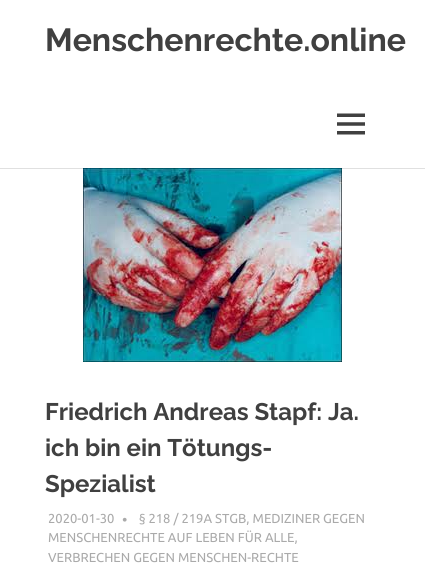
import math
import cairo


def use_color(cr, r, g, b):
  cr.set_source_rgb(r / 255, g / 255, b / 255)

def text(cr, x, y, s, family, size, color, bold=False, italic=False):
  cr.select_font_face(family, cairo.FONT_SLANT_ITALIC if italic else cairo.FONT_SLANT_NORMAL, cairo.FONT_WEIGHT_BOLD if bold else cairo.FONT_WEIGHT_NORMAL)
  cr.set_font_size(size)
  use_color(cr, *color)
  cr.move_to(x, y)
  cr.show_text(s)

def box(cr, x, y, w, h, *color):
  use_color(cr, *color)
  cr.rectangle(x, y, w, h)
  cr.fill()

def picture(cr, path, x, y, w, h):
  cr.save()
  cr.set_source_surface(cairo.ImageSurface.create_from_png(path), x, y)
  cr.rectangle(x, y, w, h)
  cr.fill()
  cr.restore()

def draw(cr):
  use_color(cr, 255, 255, 255)
  cr.paint()
  box(cr, 0, 168, 425, 1, 224, 224, 224)
  picture(cr, "img_01.png", 337, 113, 28, 22)
  picture(cr, "img_02.png", 83, 168, 259, 194)
  text(cr, 45, 51, "Menschenrechte.online", "Raleway", 32, (64, 64, 64), bold=True)
  text(cr, 45, 420, "Friedrich Andreas Stapf: Ja.", "Raleway", 24, (64, 64, 64), bold=True)
  text(cr, 45, 456, "ich bin ein Tötungs-", "Raleway", 24, (64, 64, 64), bold=True)
  text(cr, 45, 492, "Spezialist", "Raleway", 24, (64, 64, 64), bold=True)
  text(cr, 48, 523, "2020-01-30", "Ubuntu", 13, (170, 170, 170))
  text(cr, 122, 525, "•", "Ubuntu", 15, (170, 170, 170))
  text(cr, 139, 523, "§ 218 / 219A STGB, MEDIZINER GEGEN", "Ubuntu", 13, (170, 170, 170))
  text(cr, 48, 542, "MENSCHENRECHTE AUF LEBEN FÜR ALLE,", "Ubuntu", 13, (170, 170, 170))
  text(cr, 48, 562, "VERBRECHEN GEGEN MENSCHEN-RECHTE", "Ubuntu", 13, (170, 170, 170))


surface = cairo.ImageSurface(cairo.FORMAT_RGB24, 425, 581)
cr = cairo.Context(surface)
options = cairo.FontOptions()
options.set_hint_metrics(cairo.HINT_METRICS_OFF)
options.set_hint_style(cairo.HINT_STYLE_NONE)
cr.set_font_options(options)
cr.set_miter_limit(4)
draw(cr)
surface.write_to_png("out.png")
